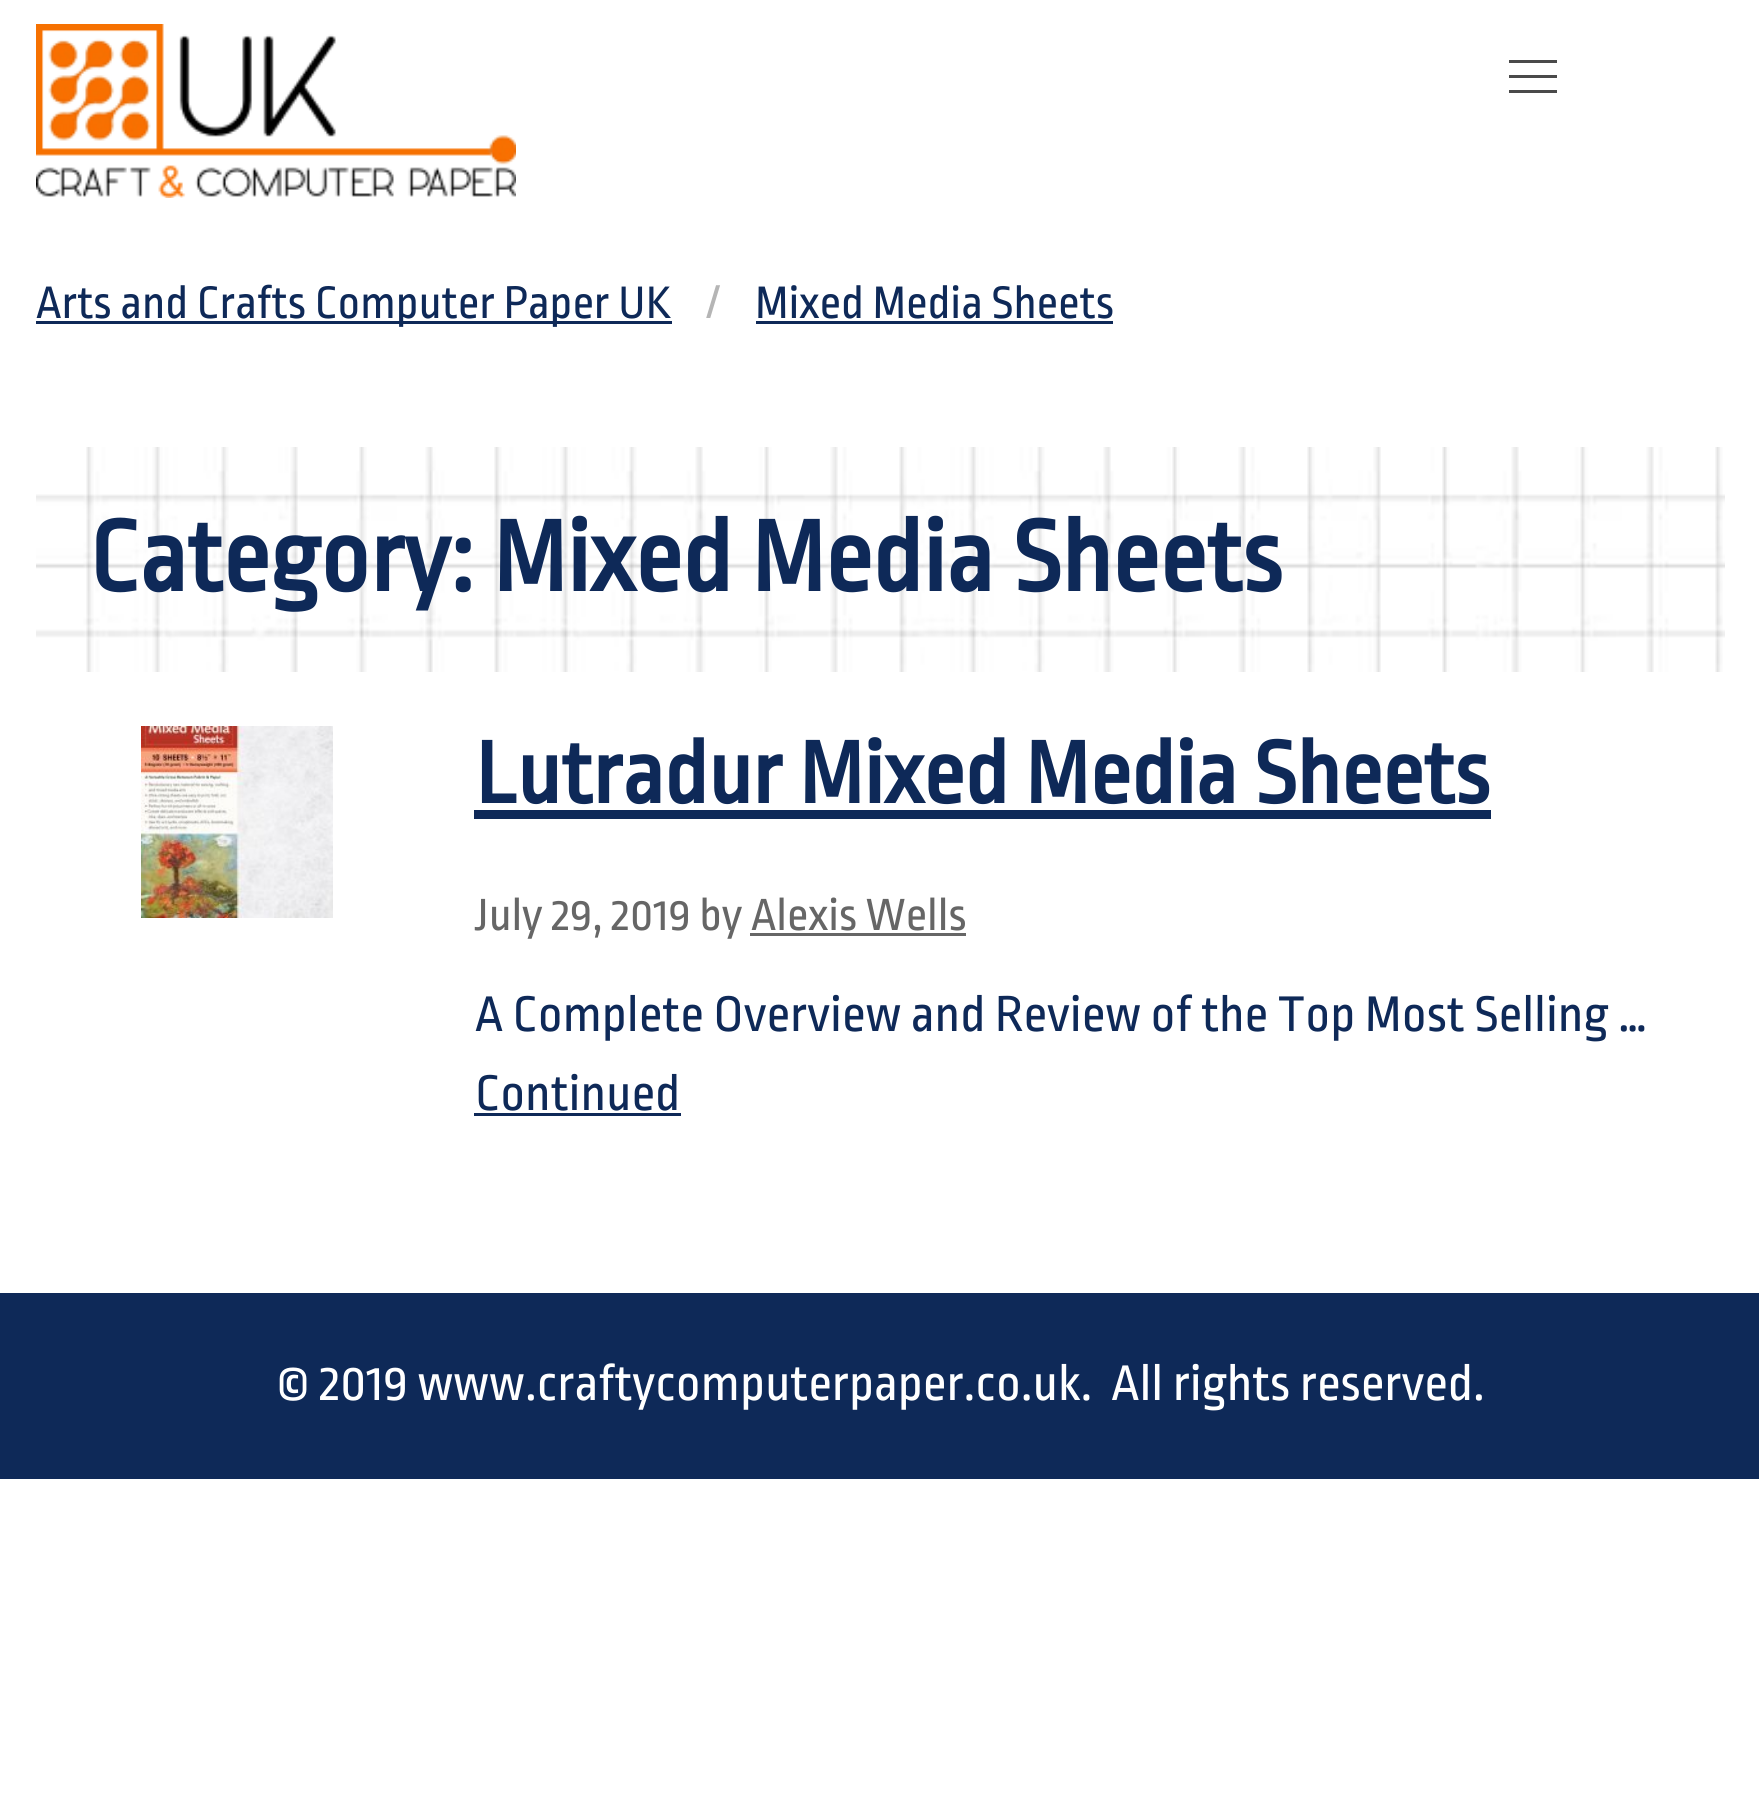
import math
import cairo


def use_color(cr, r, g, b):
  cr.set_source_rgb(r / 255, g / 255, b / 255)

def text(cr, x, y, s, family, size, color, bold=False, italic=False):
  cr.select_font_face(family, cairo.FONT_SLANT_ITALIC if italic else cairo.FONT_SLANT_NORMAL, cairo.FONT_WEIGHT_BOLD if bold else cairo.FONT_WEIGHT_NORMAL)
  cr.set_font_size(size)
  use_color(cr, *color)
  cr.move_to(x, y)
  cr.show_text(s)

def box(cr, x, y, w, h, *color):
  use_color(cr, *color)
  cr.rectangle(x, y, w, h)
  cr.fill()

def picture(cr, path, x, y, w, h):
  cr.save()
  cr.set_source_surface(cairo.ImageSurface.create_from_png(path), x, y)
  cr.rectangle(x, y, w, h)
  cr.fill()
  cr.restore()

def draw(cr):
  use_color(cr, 255, 255, 255)
  cr.paint()
  picture(cr, "img_01.png", 36, 24, 480, 174)
  box(cr, 1509, 60, 48, 3, 74, 74, 74)
  box(cr, 1509, 75, 48, 3, 74, 74, 74)
  box(cr, 1509, 90, 48, 3, 74, 74, 74)
  box(cr, 36, 321, 636, 3, 14, 41, 88)
  box(cr, 756, 321, 357, 3, 14, 41, 88)
  picture(cr, "img_02.png", 36, 447, 1689, 225)
  picture(cr, "img_03.png", 141, 726, 192, 192)
  box(cr, 474, 810, 1017, 9, 14, 41, 88)
  box(cr, 750, 933, 216, 3, 102, 102, 102)
  box(cr, 474, 1113, 207, 3, 14, 41, 88)
  box(cr, 0, 1293, 1759, 186, 14, 41, 88)
  text(cr, 36, 318, "Arts and Crafts Computer Paper UK", "Ropa Sans", 48, (14, 41, 88))
  text(cr, 707, 318, "/", "Ropa Sans", 48, (181, 181, 181))
  text(cr, 755, 318, "Mixed Media Sheets", "Ropa Sans", 48, (14, 41, 88))
  text(cr, 89, 591, "Category: Mixed Media Sheets", "Ropa Sans", 105.6, (14, 41, 88), bold=True)
  text(cr, 475, 803, "Lutradur Mixed Media Sheets", "Ropa Sans", 92.4, (14, 41, 88), bold=True)
  text(cr, 475, 930, "July 29, 2019 by Alexis Wells", "Ropa Sans", 47.5, (102, 102, 102))
  text(cr, 475, 1031, "A Complete Overview and Review of the Top Most Selling …", "Ropa Sans", 52.8, (14, 41, 88))
  text(cr, 475, 1110, "Continued", "Ropa Sans", 52.8, (14, 41, 88))
  text(cr, 276, 1400, "© 2019 www.craftycomputerpaper.co.uk.  All rights reserved.", "Ropa Sans", 52.8, (255, 255, 255))


surface = cairo.ImageSurface(cairo.FORMAT_RGB24, 1759, 1797)
cr = cairo.Context(surface)
options = cairo.FontOptions()
options.set_hint_metrics(cairo.HINT_METRICS_OFF)
options.set_hint_style(cairo.HINT_STYLE_NONE)
cr.set_font_options(options)
cr.set_miter_limit(4)
draw(cr)
surface.write_to_png("out.png")
